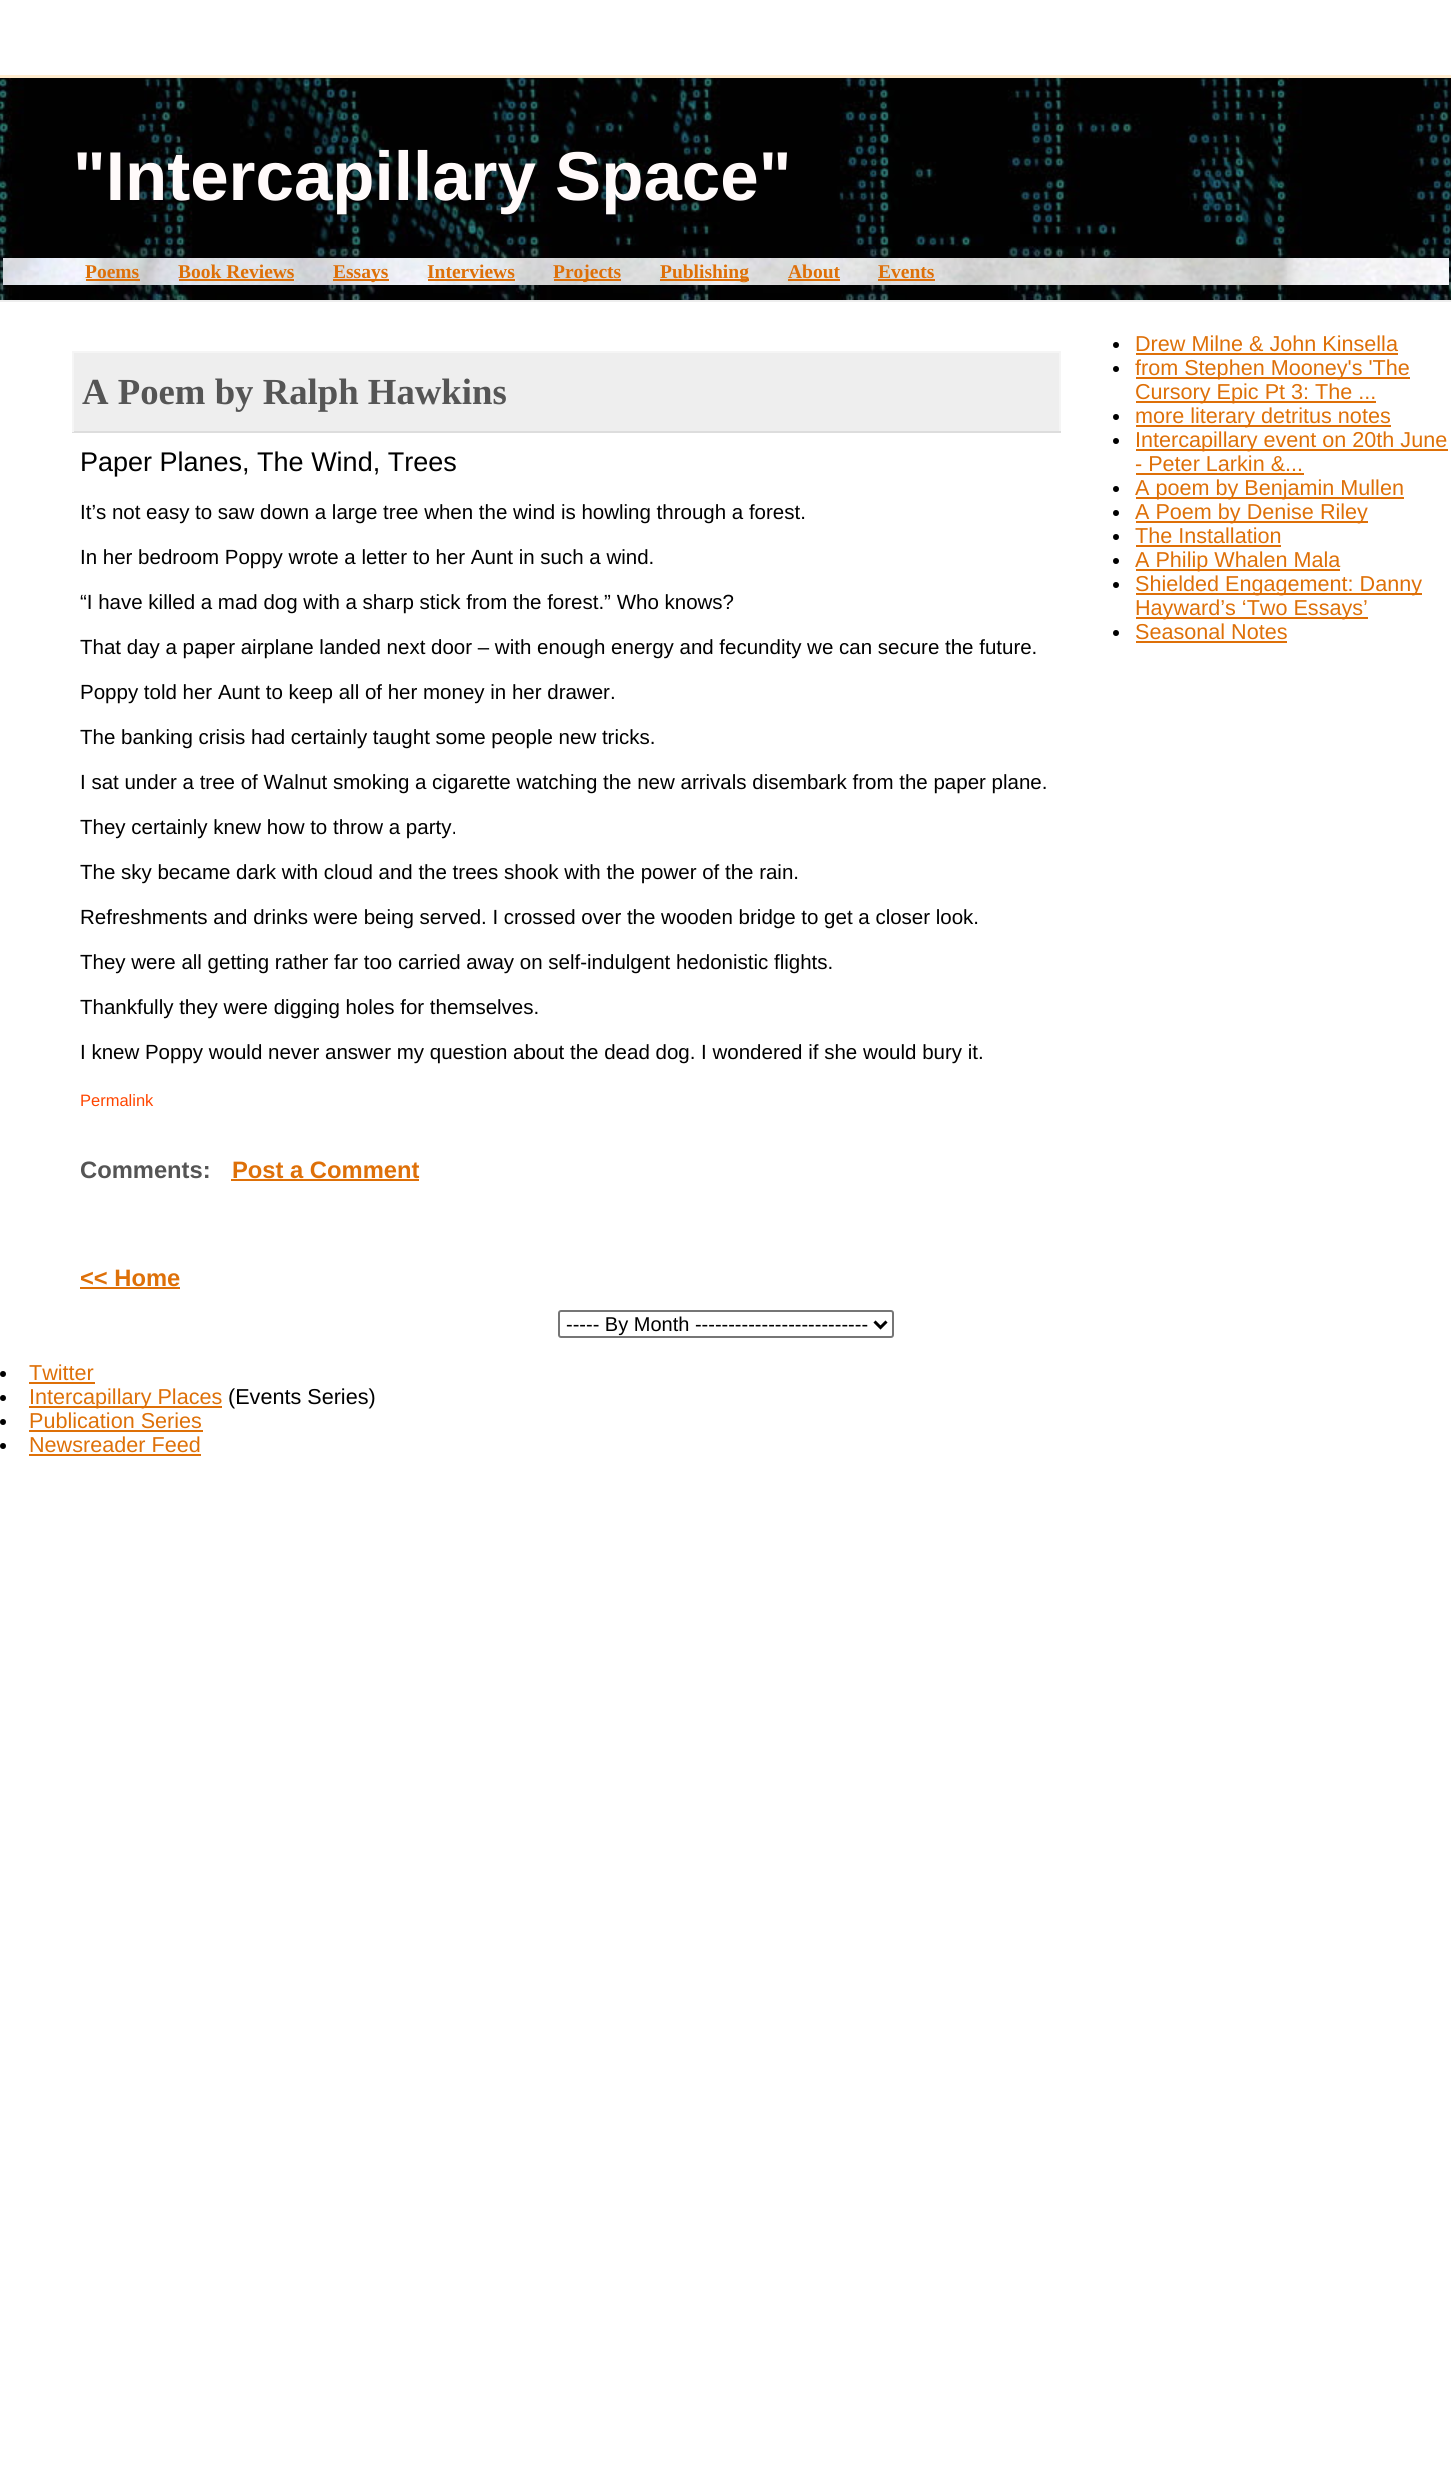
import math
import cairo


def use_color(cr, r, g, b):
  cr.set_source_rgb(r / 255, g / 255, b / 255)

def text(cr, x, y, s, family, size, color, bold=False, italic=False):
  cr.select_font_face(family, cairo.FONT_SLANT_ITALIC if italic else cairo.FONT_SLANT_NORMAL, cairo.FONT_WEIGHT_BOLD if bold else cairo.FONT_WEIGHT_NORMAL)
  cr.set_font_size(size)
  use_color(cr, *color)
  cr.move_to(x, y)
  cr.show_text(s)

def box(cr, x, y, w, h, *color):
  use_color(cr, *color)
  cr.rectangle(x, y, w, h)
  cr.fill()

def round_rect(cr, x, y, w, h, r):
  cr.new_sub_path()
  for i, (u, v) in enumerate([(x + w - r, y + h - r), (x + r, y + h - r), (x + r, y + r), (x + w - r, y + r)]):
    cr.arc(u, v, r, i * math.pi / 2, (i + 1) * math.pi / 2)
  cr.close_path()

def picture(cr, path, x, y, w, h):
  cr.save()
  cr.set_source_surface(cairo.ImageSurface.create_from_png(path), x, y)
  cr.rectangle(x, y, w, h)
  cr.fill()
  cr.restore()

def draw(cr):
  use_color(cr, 255, 255, 255)
  cr.paint()
  picture(cr, "img_01.png", 0, 246, 1451, 54)
  box(cr, 0, 75, 1451, 3, 255, 235, 205)
  box(cr, 0, 300, 1451, 2, 238, 238, 238)
  picture(cr, "img_02.png", 0, 78, 1451, 168)
  picture(cr, "img_03.png", 3, 258, 1446, 27)
  box(cr, 86, 279, 54, 2, 222, 112, 8)
  box(cr, 179, 279, 115, 2, 222, 112, 8)
  box(cr, 333, 279, 56, 2, 222, 112, 8)
  box(cr, 428, 279, 87, 2, 222, 112, 8)
  box(cr, 554, 279, 67, 2, 222, 112, 8)
  box(cr, 660, 279, 89, 2, 222, 112, 8)
  box(cr, 788, 279, 52, 2, 222, 112, 8)
  box(cr, 878, 279, 57, 2, 222, 112, 8)
  box(cr, 74, 353, 985, 78, 238, 238, 238)
  box(cr, 72, 351, 989, 2, 245, 245, 245)
  box(cr, 1059, 351, 2, 81, 245, 245, 245)
  box(cr, 72, 431, 989, 2, 221, 221, 221)
  box(cr, 72, 351, 2, 81, 245, 245, 245)
  box(cr, 231, 1179, 188, 2, 222, 112, 8)
  box(cr, 80, 1287, 100, 2, 222, 112, 8)
  use_color(cr, 0, 0, 0)
  cr.arc(1116, 345, 3, 0, 2 * math.pi)
  cr.fill()
  box(cr, 1136, 353, 262, 2, 222, 112, 8)
  use_color(cr, 0, 0, 0)
  cr.arc(1116, 369, 3, 0, 2 * math.pi)
  cr.fill()
  box(cr, 1136, 377, 274, 2, 222, 112, 8)
  box(cr, 1136, 401, 240, 2, 222, 112, 8)
  use_color(cr, 0, 0, 0)
  cr.arc(1116, 417, 3, 0, 2 * math.pi)
  cr.fill()
  box(cr, 1136, 425, 255, 2, 222, 112, 8)
  use_color(cr, 0, 0, 0)
  cr.arc(1116, 441, 3, 0, 2 * math.pi)
  cr.fill()
  box(cr, 1136, 449, 312, 2, 222, 112, 8)
  box(cr, 1136, 473, 168, 2, 222, 112, 8)
  use_color(cr, 0, 0, 0)
  cr.arc(1116, 489, 3, 0, 2 * math.pi)
  cr.fill()
  box(cr, 1136, 497, 268, 2, 222, 112, 8)
  use_color(cr, 0, 0, 0)
  cr.arc(1116, 513, 3, 0, 2 * math.pi)
  cr.fill()
  box(cr, 1136, 521, 232, 2, 222, 112, 8)
  use_color(cr, 0, 0, 0)
  cr.arc(1116, 537, 3, 0, 2 * math.pi)
  cr.fill()
  box(cr, 1136, 545, 145, 2, 222, 112, 8)
  use_color(cr, 0, 0, 0)
  cr.arc(1116, 561, 3, 0, 2 * math.pi)
  cr.fill()
  box(cr, 1136, 569, 204, 2, 222, 112, 8)
  use_color(cr, 0, 0, 0)
  cr.arc(1116, 585, 3, 0, 2 * math.pi)
  cr.fill()
  box(cr, 1136, 593, 286, 2, 222, 112, 8)
  box(cr, 1136, 617, 232, 2, 222, 112, 8)
  use_color(cr, 0, 0, 0)
  cr.arc(1116, 633, 3, 0, 2 * math.pi)
  cr.fill()
  box(cr, 1136, 641, 151, 2, 222, 112, 8)
  round_rect(cr, 559, 1311, 334, 26, 2)
  use_color(cr, 118, 118, 118)
  cr.stroke()
  cr.new_path()
  cr.move_to(874.5, 1321.5)
  cr.line_to(880.5, 1327.5)
  cr.line_to(886.5, 1321.5)
  use_color(cr, 0, 0, 0)
  cr.set_line_width(3)
  cr.stroke()
  cr.arc(3, 1374, 3, 0, 2 * math.pi)
  cr.fill()
  box(cr, 29, 1382, 66, 2, 222, 112, 8)
  use_color(cr, 0, 0, 0)
  cr.arc(3, 1398, 3, 0, 2 * math.pi)
  cr.fill()
  box(cr, 29, 1406, 193, 2, 222, 112, 8)
  use_color(cr, 0, 0, 0)
  cr.arc(3, 1422, 3, 0, 2 * math.pi)
  cr.fill()
  box(cr, 29, 1430, 174, 2, 222, 112, 8)
  use_color(cr, 0, 0, 0)
  cr.arc(3, 1446, 3, 0, 2 * math.pi)
  cr.fill()
  box(cr, 29, 1454, 172, 2, 222, 112, 8)
  text(cr, 73, 200, "\"Intercapillary Space\"", "Liberation Sans", 69.1, (255, 250, 250), bold=True)
  text(cr, 85, 278, "Poems", "Liberation Serif", 19.5, (222, 112, 8), bold=True)
  text(cr, 178, 278, "Book Reviews", "Liberation Serif", 19.5, (222, 112, 8), bold=True)
  text(cr, 333, 278, "Essays", "Liberation Serif", 19.5, (222, 112, 8), bold=True)
  text(cr, 427, 278, "Interviews", "Liberation Serif", 19.5, (222, 112, 8), bold=True)
  text(cr, 553, 278, "Projects", "Liberation Serif", 19.5, (222, 112, 8), bold=True)
  text(cr, 660, 278, "Publishing", "Liberation Serif", 19.5, (222, 112, 8), bold=True)
  text(cr, 788, 278, "About", "Liberation Serif", 19.5, (222, 112, 8), bold=True)
  text(cr, 878, 278, "Events", "Liberation Serif", 19.5, (222, 112, 8), bold=True)
  text(cr, 82, 404, "A Poem by Ralph Hawkins", "Liberation Serif", 36.75, (85, 85, 85), bold=True)
  text(cr, 80, 471, "Paper Planes, The Wind, Trees", "Liberation Sans", 27, (0, 0, 0))
  text(cr, 80, 519, "It’s not easy to saw down a large tree when the wind is howling through a forest.", "Liberation Sans", 20.5, (0, 0, 0))
  text(cr, 80, 564, "In her bedroom Poppy wrote a letter to her Aunt in such a wind.", "Liberation Sans", 20.5, (0, 0, 0))
  text(cr, 80, 609, "“I have killed a mad dog with a sharp stick from the forest.” Who knows?", "Liberation Sans", 20.5, (0, 0, 0))
  text(cr, 80, 654, "That day a paper airplane landed next door – with enough energy and fecundity we can secure the future.", "Liberation Sans", 20.5, (0, 0, 0))
  text(cr, 80, 699, "Poppy told her Aunt to keep all of her money in her drawer.", "Liberation Sans", 20.5, (0, 0, 0))
  text(cr, 80, 744, "The banking crisis had certainly taught some people new tricks.", "Liberation Sans", 20.5, (0, 0, 0))
  text(cr, 80, 789, "I sat under a tree of Walnut smoking a cigarette watching the new arrivals disembark from the paper plane.", "Liberation Sans", 20.5, (0, 0, 0))
  text(cr, 80, 834, "They certainly knew how to throw a party.", "Liberation Sans", 20.5, (0, 0, 0))
  text(cr, 80, 879, "The sky became dark with cloud and the trees shook with the power of the rain.", "Liberation Sans", 20.5, (0, 0, 0))
  text(cr, 80, 924, "Refreshments and drinks were being served. I crossed over the wooden bridge to get a closer look.", "Liberation Sans", 20.5, (0, 0, 0))
  text(cr, 80, 969, "They were all getting rather far too carried away on self-indulgent hedonistic flights.", "Liberation Sans", 20.5, (0, 0, 0))
  text(cr, 80, 1014, "Thankfully they were digging holes for themselves.", "Liberation Sans", 20.5, (0, 0, 0))
  text(cr, 80, 1059, "I knew Poppy would never answer my question about the dead dog. I wondered if she would bury it.", "Liberation Sans", 20.5, (0, 0, 0))
  text(cr, 80, 1106, "Permalink", "Liberation Sans", 16.5, (255, 69, 0))
  text(cr, 80, 1178, "Comments:", "Liberation Sans", 23.75, (85, 85, 85), bold=True)
  text(cr, 232, 1178, "Post a Comment", "Liberation Sans", 23.75, (222, 112, 8), bold=True)
  text(cr, 80, 1286, "<< Home", "Liberation Sans", 23.75, (222, 112, 8), bold=True)
  text(cr, 1135, 351, "Drew Milne & John Kinsella", "Liberation Sans", 21.6, (222, 112, 8))
  text(cr, 1135, 375, "from Stephen Mooney's 'The", "Liberation Sans", 21.6, (222, 112, 8))
  text(cr, 1135, 399, "Cursory Epic Pt 3: The ...", "Liberation Sans", 21.6, (222, 112, 8))
  text(cr, 1135, 423, "more literary detritus notes", "Liberation Sans", 21.6, (222, 112, 8))
  text(cr, 1135, 447, "Intercapillary event on 20th June", "Liberation Sans", 21.6, (222, 112, 8))
  text(cr, 1135, 471, "- Peter Larkin &...", "Liberation Sans", 21.6, (222, 112, 8))
  text(cr, 1135, 495, "A poem by Benjamin Mullen", "Liberation Sans", 21.6, (222, 112, 8))
  text(cr, 1135, 519, "A Poem by Denise Riley", "Liberation Sans", 21.6, (222, 112, 8))
  text(cr, 1135, 543, "The Installation", "Liberation Sans", 21.6, (222, 112, 8))
  text(cr, 1135, 567, "A Philip Whalen Mala", "Liberation Sans", 21.6, (222, 112, 8))
  text(cr, 1135, 591, "Shielded Engagement: Danny", "Liberation Sans", 21.6, (222, 112, 8))
  text(cr, 1135, 615, "Hayward’s ‘Two Essays’", "Liberation Sans", 21.6, (222, 112, 8))
  text(cr, 1135, 639, "Seasonal Notes", "Liberation Sans", 21.6, (222, 112, 8))
  text(cr, 566, 1331, "----- By Month --------------------------", "Liberation Sans", 20, (0, 0, 0))
  text(cr, 29, 1380, "Twitter", "Liberation Sans", 21.6, (222, 112, 8))
  text(cr, 29, 1404, "Intercapillary Places", "Liberation Sans", 21.6, (222, 112, 8))
  text(cr, 228, 1404, "(Events Series)", "Liberation Sans", 21.6, (0, 0, 0))
  text(cr, 29, 1428, "Publication Series", "Liberation Sans", 21.6, (222, 112, 8))
  text(cr, 29, 1452, "Newsreader Feed", "Liberation Sans", 21.6, (222, 112, 8))


surface = cairo.ImageSurface(cairo.FORMAT_RGB24, 1451, 2482)
cr = cairo.Context(surface)
options = cairo.FontOptions()
options.set_hint_metrics(cairo.HINT_METRICS_OFF)
options.set_hint_style(cairo.HINT_STYLE_NONE)
cr.set_font_options(options)
cr.set_miter_limit(4)
draw(cr)
surface.write_to_png("out.png")
